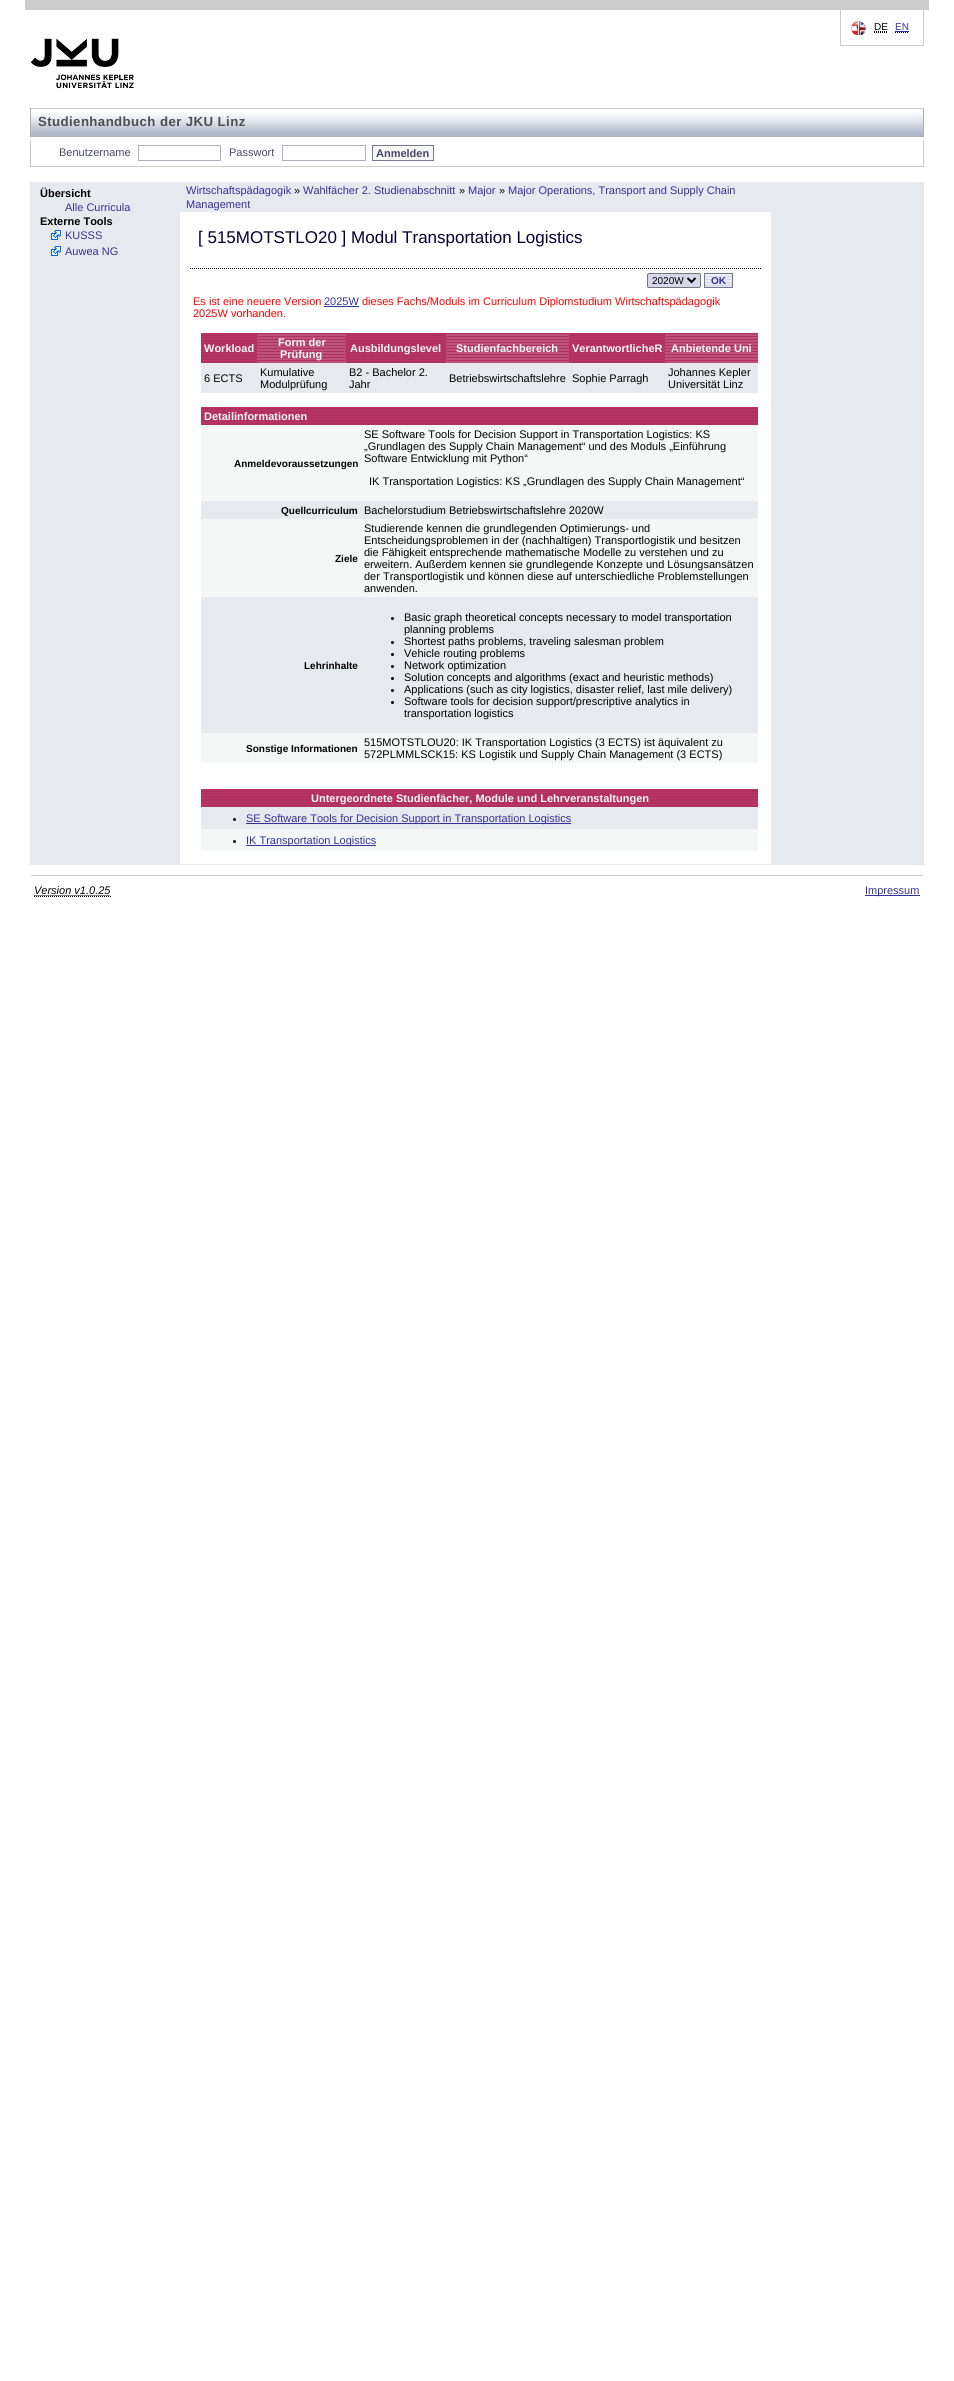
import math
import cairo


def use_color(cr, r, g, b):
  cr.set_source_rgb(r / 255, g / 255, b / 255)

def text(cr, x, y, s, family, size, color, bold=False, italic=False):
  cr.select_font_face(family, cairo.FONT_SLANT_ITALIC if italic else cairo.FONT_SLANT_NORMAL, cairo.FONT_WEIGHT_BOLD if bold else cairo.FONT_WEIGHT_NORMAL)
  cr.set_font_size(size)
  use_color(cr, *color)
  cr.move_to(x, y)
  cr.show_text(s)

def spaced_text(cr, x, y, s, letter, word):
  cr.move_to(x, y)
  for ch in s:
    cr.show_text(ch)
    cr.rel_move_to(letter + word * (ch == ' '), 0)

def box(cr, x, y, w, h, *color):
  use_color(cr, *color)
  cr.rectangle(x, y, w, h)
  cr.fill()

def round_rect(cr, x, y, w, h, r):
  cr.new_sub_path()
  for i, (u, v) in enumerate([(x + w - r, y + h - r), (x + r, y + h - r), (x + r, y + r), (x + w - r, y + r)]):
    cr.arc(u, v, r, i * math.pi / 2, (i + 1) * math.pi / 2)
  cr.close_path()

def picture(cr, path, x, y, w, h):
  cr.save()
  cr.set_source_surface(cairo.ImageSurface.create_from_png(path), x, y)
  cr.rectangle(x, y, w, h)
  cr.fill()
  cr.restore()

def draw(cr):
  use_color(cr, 255, 255, 255)
  cr.paint()
  box(cr, 25, 0, 904, 10, 204, 204, 204)
  box(cr, 923, 10, 1, 36, 204, 204, 204)
  box(cr, 840, 45, 84, 1, 204, 204, 204)
  box(cr, 840, 10, 1, 36, 204, 204, 204)
  picture(cr, "img_01.png", 851, 21, 15, 14)
  cr.new_path()
  cr.move_to(874, 32.5)
  cr.line_to(887, 32.5)
  cr.move_to(874, 31.5)
  cr.line_to(887.5, 31.5)
  use_color(cr, 0, 0, 0)
  cr.set_line_width(1)
  cr.set_dash([1, 1])
  cr.stroke()
  cr.new_path()
  cr.move_to(895, 32.5)
  cr.line_to(909, 32.5)
  cr.stroke()
  box(cr, 895, 31, 14, 1, 51, 50, 152)
  picture(cr, "img_02.png", 30, 38, 104, 51)
  picture(cr, "img_03.png", 31, 108, 892, 28)
  box(cr, 923, 108, 1, 29, 174, 174, 174)
  box(cr, 30, 136, 894, 1, 174, 174, 174)
  box(cr, 30, 108, 1, 29, 174, 174, 174)
  box(cr, 923, 140, 1, 27, 204, 204, 204)
  box(cr, 30, 166, 894, 1, 204, 204, 204)
  box(cr, 30, 140, 1, 27, 204, 204, 204)
  cr.rectangle(138.5, 145.5, 82, 15)
  use_color(cr, 176, 174, 195)
  cr.set_dash([])
  cr.stroke()
  cr.rectangle(282.5, 145.5, 83, 15)
  cr.stroke()
  use_color(cr, 247, 247, 247)
  cr.rectangle(372.5, 145.5, 61, 15)
  cr.fill_preserve()
  use_color(cr, 116, 120, 149)
  cr.stroke()
  box(cr, 30, 182, 150, 682, 230, 233, 238)
  picture(cr, "img_04.png", 51, 230, 10, 10)
  picture(cr, "img_04.png", 51, 246, 10, 10)
  box(cr, 180, 182, 744, 30, 230, 233, 238)
  box(cr, 771, 211, 1, 653, 230, 233, 238)
  cr.new_path()
  cr.move_to(190, 268.5)
  cr.line_to(761, 268.5)
  use_color(cr, 0, 0, 0)
  cr.set_dash([1, 1])
  cr.stroke()
  use_color(cr, 214, 215, 233)
  round_rect(cr, 647.5, 273.5, 53, 14, 1.5)
  cr.fill_preserve()
  use_color(cr, 118, 118, 118)
  cr.set_dash([])
  cr.stroke()
  cr.new_path()
  cr.move_to(687.5, 278)
  cr.line_to(691.5, 282)
  cr.line_to(695.5, 278)
  use_color(cr, 0, 0, 0)
  cr.set_line_width(2)
  cr.stroke()
  picture(cr, "img_05.png", 705, 274, 27, 13)
  cr.rectangle(704.5, 273.5, 28, 14)
  use_color(cr, 116, 120, 149)
  cr.set_line_width(1)
  cr.stroke()
  box(cr, 324, 306, 35, 1, 51, 50, 152)
  picture(cr, "img_06.png", 201, 333, 56, 30)
  picture(cr, "img_07.png", 257, 333, 89, 30)
  picture(cr, "img_08.png", 346, 333, 100, 30)
  picture(cr, "img_09.png", 446, 333, 123, 30)
  picture(cr, "img_10.png", 569, 333, 96, 30)
  picture(cr, "img_11.png", 665, 333, 93, 30)
  box(cr, 201, 363, 557, 30, 230, 233, 237)
  picture(cr, "img_12.png", 201, 407, 557, 18)
  box(cr, 201, 425, 557, 76, 245, 247, 247)
  box(cr, 201, 501, 557, 18, 230, 233, 237)
  box(cr, 201, 519, 557, 78, 245, 247, 247)
  box(cr, 201, 597, 557, 136, 230, 233, 237)
  use_color(cr, 0, 0, 0)
  cr.arc(392.5, 618.5, 1.5, 0, 2 * math.pi)
  cr.fill()
  cr.arc(392.5, 642.5, 1.5, 0, 2 * math.pi)
  cr.fill()
  cr.arc(392.5, 654.5, 1.5, 0, 2 * math.pi)
  cr.fill()
  cr.arc(392.5, 666.5, 1.5, 0, 2 * math.pi)
  cr.fill()
  cr.arc(392.5, 678.5, 1.5, 0, 2 * math.pi)
  cr.fill()
  cr.arc(392.5, 690.5, 1.5, 0, 2 * math.pi)
  cr.fill()
  cr.arc(392.5, 702.5, 1.5, 0, 2 * math.pi)
  cr.fill()
  box(cr, 201, 733, 557, 30, 245, 247, 247)
  picture(cr, "img_12.png", 201, 789, 557, 18)
  box(cr, 201, 807, 557, 22, 230, 233, 237)
  use_color(cr, 0, 0, 0)
  cr.arc(234.5, 819.5, 1.5, 0, 2 * math.pi)
  cr.fill()
  box(cr, 246, 823, 325, 1, 51, 50, 152)
  box(cr, 201, 829, 557, 22, 245, 247, 247)
  use_color(cr, 0, 0, 0)
  cr.arc(234.5, 841.5, 1.5, 0, 2 * math.pi)
  cr.fill()
  box(cr, 246, 845, 130, 1, 51, 50, 152)
  box(cr, 772, 212, 152, 652, 230, 233, 238)
  box(cr, 30, 864, 895, 1, 230, 233, 238)
  box(cr, 31, 875, 892, 1, 204, 204, 204)
  cr.new_path()
  cr.move_to(34, 896.5)
  cr.line_to(111, 896.5)
  use_color(cr, 0, 0, 0)
  cr.set_dash([1, 1])
  cr.stroke()
  cr.new_path()
  cr.move_to(34.5, 895.5)
  cr.line_to(110.5, 895.5)
  cr.stroke()
  box(cr, 865, 895, 55, 1, 51, 50, 152)
  text(cr, 874, 30, "DE", "Liberation Sans", 10, (0, 0, 0))
  text(cr, 895, 30, "EN", "Liberation Sans", 10, (51, 50, 152))
  cr.select_font_face("Liberation Sans", cairo.FONT_SLANT_NORMAL, cairo.FONT_WEIGHT_BOLD)
  cr.set_font_size(13.25)
  use_color(cr, 78, 78, 78)
  spaced_text(cr, 38, 126, "Studienhandbuch der JKU Linz", 0.4, 0)
  text(cr, 59, 156, "Benutzername", "Liberation Sans", 11, (71, 71, 102))
  text(cr, 229, 156, "Passwort", "Liberation Sans", 11, (71, 71, 102))
  text(cr, 376, 157, "Anmelden", "Liberation Sans", 11, (71, 71, 102), bold=True)
  text(cr, 40, 197, "Übersicht", "Liberation Sans", 11, (0, 0, 0), bold=True)
  text(cr, 65, 211, "Alle Curricula", "Liberation Sans", 11, (51, 50, 152))
  text(cr, 40, 225, "Externe Tools", "Liberation Sans", 11, (0, 0, 0), bold=True)
  text(cr, 65, 239, "KUSSS", "Liberation Sans", 11, (51, 50, 152))
  text(cr, 65, 255, "Auwea NG", "Liberation Sans", 11, (51, 50, 152))
  text(cr, 186, 194, "Wirtschaftspädagogik", "Liberation Sans", 11, (51, 50, 152))
  text(cr, 294, 194, "»", "Liberation Sans", 11, (0, 0, 0))
  text(cr, 303, 194, "Wahlfächer 2. Studienabschnitt", "Liberation Sans", 11, (51, 50, 152))
  text(cr, 459, 194, "»", "Liberation Sans", 11, (0, 0, 0))
  text(cr, 468, 194, "Major", "Liberation Sans", 11, (51, 50, 152))
  text(cr, 499, 194, "»", "Liberation Sans", 11, (0, 0, 0))
  text(cr, 508, 194, "Major Operations, Transport and Supply Chain", "Liberation Sans", 11, (51, 50, 152))
  text(cr, 186, 208, "Management", "Liberation Sans", 11, (51, 50, 152))
  text(cr, 198, 243, "[ 515MOTSTLO20 ] Modul Transportation Logistics", "Liberation Sans", 17, (0, 0, 51))
  text(cr, 652, 284, "2020W", "Liberation Sans", 10, (0, 0, 0))
  text(cr, 711, 284, "OK", "Liberation Sans", 10, (51, 50, 152), bold=True)
  text(cr, 193, 305, "Es ist eine neuere Version", "Liberation Sans", 11, (255, 0, 0))
  text(cr, 324, 305, "2025W", "Liberation Sans", 11, (51, 50, 152))
  text(cr, 362, 305, "dieses Fachs/Moduls im Curriculum Diplomstudium Wirtschaftspädagogik", "Liberation Sans", 11, (255, 0, 0))
  text(cr, 193, 317, "2025W vorhanden.", "Liberation Sans", 11, (255, 0, 0))
  text(cr, 204, 352, "Workload", "Liberation Sans", 11, (247, 247, 247), bold=True)
  text(cr, 278, 346, "Form der", "Liberation Sans", 11, (247, 247, 247), bold=True)
  text(cr, 280, 358, "Prüfung", "Liberation Sans", 11, (247, 247, 247), bold=True)
  text(cr, 350, 352, "Ausbildungslevel", "Liberation Sans", 11, (247, 247, 247), bold=True)
  text(cr, 456, 352, "Studienfachbereich", "Liberation Sans", 11, (247, 247, 247), bold=True)
  text(cr, 572, 352, "VerantwortlicheR", "Liberation Sans", 11, (247, 247, 247), bold=True)
  text(cr, 671, 352, "Anbietende Uni", "Liberation Sans", 11, (247, 247, 247), bold=True)
  text(cr, 204, 382, "6 ECTS", "Liberation Sans", 11, (0, 0, 0))
  text(cr, 260, 376, "Kumulative", "Liberation Sans", 11, (0, 0, 0))
  text(cr, 260, 388, "Modulprüfung", "Liberation Sans", 11, (0, 0, 0))
  text(cr, 349, 376, "B2 - Bachelor 2.", "Liberation Sans", 11, (0, 0, 0))
  text(cr, 349, 388, "Jahr", "Liberation Sans", 11, (0, 0, 0))
  text(cr, 449, 382, "Betriebswirtschaftslehre", "Liberation Sans", 11, (0, 0, 0))
  text(cr, 572, 382, "Sophie Parragh", "Liberation Sans", 11, (0, 0, 0))
  text(cr, 668, 376, "Johannes Kepler", "Liberation Sans", 11, (0, 0, 0))
  text(cr, 668, 388, "Universität Linz", "Liberation Sans", 11, (0, 0, 0))
  text(cr, 204, 420, "Detailinformationen", "Liberation Sans", 11, (247, 247, 247), bold=True)
  text(cr, 234, 467, "Anmeldevoraussetzungen", "Liberation Sans", 10, (0, 0, 0), bold=True)
  text(cr, 364, 438, "SE Software Tools for Decision Support in Transportation Logistics: KS", "Liberation Sans", 11, (0, 0, 0))
  text(cr, 364, 450, "„Grundlagen des Supply Chain Management“ und des Moduls „Einführung", "Liberation Sans", 11, (0, 0, 0))
  text(cr, 364, 462, "Software Entwicklung mit Python“", "Liberation Sans", 11, (0, 0, 0))
  text(cr, 369, 485, "IK Transportation Logistics: KS „Grundlagen des Supply Chain Management“", "Liberation Sans", 11, (0, 0, 0))
  text(cr, 281, 514, "Quellcurriculum", "Liberation Sans", 10, (0, 0, 0), bold=True)
  text(cr, 364, 514, "Bachelorstudium Betriebswirtschaftslehre 2020W", "Liberation Sans", 11, (0, 0, 0))
  text(cr, 335, 562, "Ziele", "Liberation Sans", 10, (0, 0, 0), bold=True)
  text(cr, 364, 532, "Studierende kennen die grundlegenden Optimierungs- und", "Liberation Sans", 11, (0, 0, 0))
  text(cr, 364, 544, "Entscheidungsproblemen in der (nachhaltigen) Transportlogistik und besitzen", "Liberation Sans", 11, (0, 0, 0))
  text(cr, 364, 556, "die Fähigkeit entsprechende mathematische Modelle zu verstehen und zu", "Liberation Sans", 11, (0, 0, 0))
  text(cr, 364, 568, "erweitern. Außerdem kennen sie grundlegende Konzepte und Lösungsansätzen", "Liberation Sans", 11, (0, 0, 0))
  text(cr, 364, 580, "der Transportlogistik und können diese auf unterschiedliche Problemstellungen", "Liberation Sans", 11, (0, 0, 0))
  text(cr, 364, 592, "anwenden.", "Liberation Sans", 11, (0, 0, 0))
  text(cr, 304, 669, "Lehrinhalte", "Liberation Sans", 10, (0, 0, 0), bold=True)
  text(cr, 404, 621, "Basic graph theoretical concepts necessary to model transportation", "Liberation Sans", 11, (0, 0, 0))
  text(cr, 404, 633, "planning problems", "Liberation Sans", 11, (0, 0, 0))
  text(cr, 404, 645, "Shortest paths problems, traveling salesman problem", "Liberation Sans", 11, (0, 0, 0))
  text(cr, 404, 657, "Vehicle routing problems", "Liberation Sans", 11, (0, 0, 0))
  text(cr, 404, 669, "Network optimization", "Liberation Sans", 11, (0, 0, 0))
  text(cr, 404, 681, "Solution concepts and algorithms (exact and heuristic methods)", "Liberation Sans", 11, (0, 0, 0))
  text(cr, 404, 693, "Applications (such as city logistics, disaster relief, last mile delivery)", "Liberation Sans", 11, (0, 0, 0))
  text(cr, 404, 705, "Software tools for decision support/prescriptive analytics in", "Liberation Sans", 11, (0, 0, 0))
  text(cr, 404, 717, "transportation logistics", "Liberation Sans", 11, (0, 0, 0))
  text(cr, 246, 752, "Sonstige Informationen", "Liberation Sans", 10, (0, 0, 0), bold=True)
  text(cr, 364, 746, "515MOTSTLOU20: IK Transportation Logistics (3 ECTS) ist äquivalent zu", "Liberation Sans", 11, (0, 0, 0))
  text(cr, 364, 758, "572PLMMLSCK15: KS Logistik und Supply Chain Management (3 ECTS)", "Liberation Sans", 11, (0, 0, 0))
  text(cr, 311, 802, "Untergeordnete Studienfächer, Module und Lehrveranstaltungen", "Liberation Sans", 11, (247, 247, 247), bold=True)
  text(cr, 246, 822, "SE Software Tools for Decision Support in Transportation Logistics", "Liberation Sans", 11, (51, 50, 152))
  text(cr, 246, 844, "IK Transportation Logistics", "Liberation Sans", 11, (51, 50, 152))
  text(cr, 34, 894, "Version v1.0.25", "Liberation Sans", 11, (0, 0, 0), italic=True)
  text(cr, 865, 894, "Impressum", "Liberation Sans", 11, (51, 50, 152))


surface = cairo.ImageSurface(cairo.FORMAT_RGB24, 954, 2381)
cr = cairo.Context(surface)
options = cairo.FontOptions()
options.set_hint_metrics(cairo.HINT_METRICS_OFF)
options.set_hint_style(cairo.HINT_STYLE_NONE)
cr.set_font_options(options)
cr.set_miter_limit(4)
draw(cr)
surface.write_to_png("out.png")
